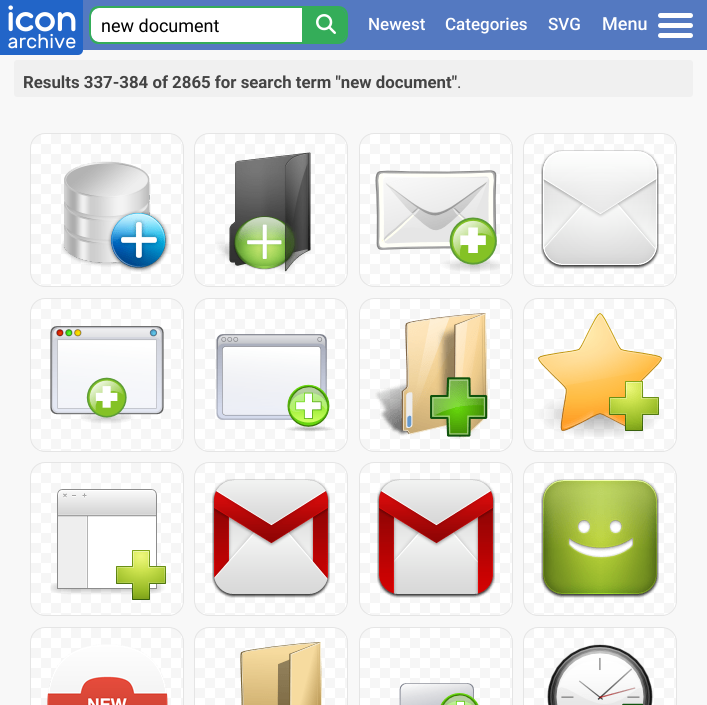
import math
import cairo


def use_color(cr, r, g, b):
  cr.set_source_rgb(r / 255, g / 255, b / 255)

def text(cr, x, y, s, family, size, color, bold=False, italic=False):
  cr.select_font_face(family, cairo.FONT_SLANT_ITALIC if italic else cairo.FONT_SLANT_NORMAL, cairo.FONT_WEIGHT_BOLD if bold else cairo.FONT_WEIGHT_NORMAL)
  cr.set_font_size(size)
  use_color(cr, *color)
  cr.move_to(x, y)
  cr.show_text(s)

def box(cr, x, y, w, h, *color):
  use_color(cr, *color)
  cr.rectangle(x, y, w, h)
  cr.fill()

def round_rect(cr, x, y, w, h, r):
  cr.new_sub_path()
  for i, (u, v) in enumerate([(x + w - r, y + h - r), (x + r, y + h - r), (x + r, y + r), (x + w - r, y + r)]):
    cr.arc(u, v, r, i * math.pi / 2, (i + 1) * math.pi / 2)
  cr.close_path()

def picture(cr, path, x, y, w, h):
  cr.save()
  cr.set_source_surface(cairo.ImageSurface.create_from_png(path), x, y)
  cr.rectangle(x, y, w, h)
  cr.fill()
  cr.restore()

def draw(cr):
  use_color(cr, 248, 248, 248)
  cr.paint()
  box(cr, 83, 0, 624, 50, 84, 121, 193)
  picture(cr, "img_01.png", 0, 0, 83, 55)
  use_color(cr, 255, 255, 255)
  cr.new_path()
  cr.move_to(99, 8)
  cr.line_to(302, 8)
  cr.line_to(302, 42)
  cr.line_to(99, 42)
  cr.curve_to(94.5, 42, 91, 38.5, 91, 34)
  cr.line_to(91, 16)
  cr.curve_to(91, 11.5, 94.5, 8, 99, 8)
  cr.close_path()
  cr.fill()
  use_color(cr, 52, 173, 89)
  cr.set_fill_rule(cairo.FILL_RULE_EVEN_ODD)
  cr.new_path()
  cr.move_to(99, 6)
  cr.line_to(302, 6)
  cr.line_to(302, 44)
  cr.line_to(97, 44)
  cr.curve_to(88, 42, 89, 32, 89, 25)
  cr.curve_to(89, 17, 88, 6, 99, 6)
  cr.close_path()
  cr.move_to(99, 8)
  cr.line_to(302, 8)
  cr.line_to(302, 42)
  cr.line_to(99, 42)
  cr.curve_to(95, 42, 91, 38, 91, 34)
  cr.line_to(91, 16)
  cr.curve_to(91, 12, 95, 8, 99, 8)
  cr.close_path()
  cr.fill()
  cr.new_path()
  cr.move_to(302, 8)
  cr.line_to(338, 8)
  cr.curve_to(342.5, 8, 346, 11.5, 346, 16)
  cr.line_to(346, 34)
  cr.curve_to(346, 38.5, 342.5, 42, 338, 42)
  cr.line_to(302, 42)
  cr.close_path()
  cr.fill()
  cr.new_path()
  cr.move_to(302, 6)
  cr.line_to(338, 6)
  cr.curve_to(344, 6, 348, 10, 348, 16)
  cr.line_to(348, 34)
  cr.curve_to(348, 40, 344, 44, 338, 44)
  cr.line_to(302, 44)
  cr.close_path()
  cr.move_to(302, 8)
  cr.line_to(332, 8)
  cr.curve_to(347, 8, 346, 11, 346, 25)
  cr.curve_to(346, 39, 347, 42, 332, 42)
  cr.line_to(302, 42)
  cr.close_path()
  cr.fill()
  picture(cr, "img_02.png", 316, 14, 20, 20)
  use_color(cr, 255, 255, 255)
  round_rect(cr, 658, 13, 35, 5, 2.5)
  cr.fill()
  round_rect(cr, 658, 23, 35, 5, 2.5)
  cr.fill()
  round_rect(cr, 658, 33, 35, 5, 2.5)
  cr.fill()
  use_color(cr, 240, 240, 240)
  round_rect(cr, 14, 60, 679, 37, 3)
  cr.fill()
  picture(cr, "img_03.png", 30, 133, 154, 154)
  round_rect(cr, 30.5, 133.5, 153, 153, 14.5)
  use_color(cr, 229, 229, 229)
  cr.set_line_width(1)
  cr.stroke()
  picture(cr, "img_04.png", 62, 161, 108, 111)
  picture(cr, "img_03.png", 194, 133, 154, 154)
  round_rect(cr, 194.5, 133.5, 153, 153, 14.5)
  cr.stroke()
  picture(cr, "img_05.png", 215, 152, 96, 121)
  picture(cr, "img_06.png", 359, 133, 154, 154)
  round_rect(cr, 359.5, 133.5, 153, 153, 14.5)
  cr.stroke()
  picture(cr, "img_07.png", 375, 170, 125, 102)
  picture(cr, "img_03.png", 523, 133, 154, 154)
  round_rect(cr, 523.5, 133.5, 153, 153, 14.5)
  cr.stroke()
  picture(cr, "img_08.png", 541, 150, 118, 119)
  picture(cr, "img_03.png", 30, 298, 154, 154)
  round_rect(cr, 30.5, 298.5, 153, 153, 14.5)
  cr.stroke()
  picture(cr, "img_09.png", 50, 326, 114, 98)
  picture(cr, "img_03.png", 194, 298, 154, 154)
  round_rect(cr, 194.5, 298.5, 153, 153, 14.5)
  cr.stroke()
  picture(cr, "img_10.png", 216, 334, 118, 98)
  picture(cr, "img_06.png", 359, 298, 154, 154)
  round_rect(cr, 359.5, 298.5, 153, 153, 14.5)
  cr.stroke()
  picture(cr, "img_11.png", 375, 313, 113, 126)
  picture(cr, "img_03.png", 523, 298, 154, 154)
  round_rect(cr, 523.5, 298.5, 153, 153, 14.5)
  cr.stroke()
  picture(cr, "img_12.png", 538, 313, 124, 124)
  picture(cr, "img_03.png", 30, 462, 154, 154)
  round_rect(cr, 30.5, 462.5, 153, 153, 14.5)
  cr.stroke()
  picture(cr, "img_13.png", 50, 489, 116, 111)
  picture(cr, "img_03.png", 194, 462, 154, 154)
  round_rect(cr, 194.5, 462.5, 153, 153, 14.5)
  cr.stroke()
  picture(cr, "img_14.png", 212, 479, 118, 119)
  picture(cr, "img_06.png", 359, 462, 154, 154)
  round_rect(cr, 359.5, 462.5, 153, 153, 14.5)
  cr.stroke()
  picture(cr, "img_15.png", 377, 479, 118, 119)
  picture(cr, "img_03.png", 523, 462, 154, 154)
  round_rect(cr, 523.5, 462.5, 153, 153, 14.5)
  cr.stroke()
  picture(cr, "img_16.png", 541, 479, 118, 119)
  picture(cr, "img_17.png", 30, 627, 154, 78)
  round_rect(cr, 30.5, 627.5, 153, 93, 14.5)
  cr.stroke()
  picture(cr, "img_18.png", 47, 644, 121, 61)
  picture(cr, "img_17.png", 194, 627, 154, 78)
  round_rect(cr, 194.5, 627.5, 153, 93, 14.5)
  cr.stroke()
  picture(cr, "img_19.png", 240, 642, 82, 63)
  picture(cr, "img_20.png", 359, 627, 154, 78)
  round_rect(cr, 359.5, 627.5, 153, 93, 14.5)
  cr.stroke()
  picture(cr, "img_21.png", 399, 683, 80, 22)
  picture(cr, "img_17.png", 523, 627, 154, 78)
  round_rect(cr, 523.5, 627.5, 153, 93, 14.5)
  cr.stroke()
  picture(cr, "img_22.png", 547, 644, 106, 61)
  text(cr, 101, 32, "new document", "Roboto", 18, (0, 0, 0))
  text(cr, 368, 30, "Newest", "Roboto Medium", 17, (255, 255, 255))
  text(cr, 445, 30, "Categories", "Roboto Medium", 17, (255, 255, 255))
  text(cr, 548, 30, "SVG", "Roboto Medium", 17, (255, 255, 255))
  text(cr, 602, 30, "Menu", "Roboto Medium", 18, (255, 255, 255))
  text(cr, 23, 88, "Results 337-384 of 2865 for search term \"new document\"", "Roboto", 16.8, (68, 68, 68), bold=True)
  text(cr, 457, 88, ".", "Roboto", 16.8, (68, 68, 68))


surface = cairo.ImageSurface(cairo.FORMAT_RGB24, 707, 705)
cr = cairo.Context(surface)
options = cairo.FontOptions()
options.set_hint_metrics(cairo.HINT_METRICS_OFF)
options.set_hint_style(cairo.HINT_STYLE_NONE)
cr.set_font_options(options)
cr.set_miter_limit(4)
draw(cr)
surface.write_to_png("out.png")
